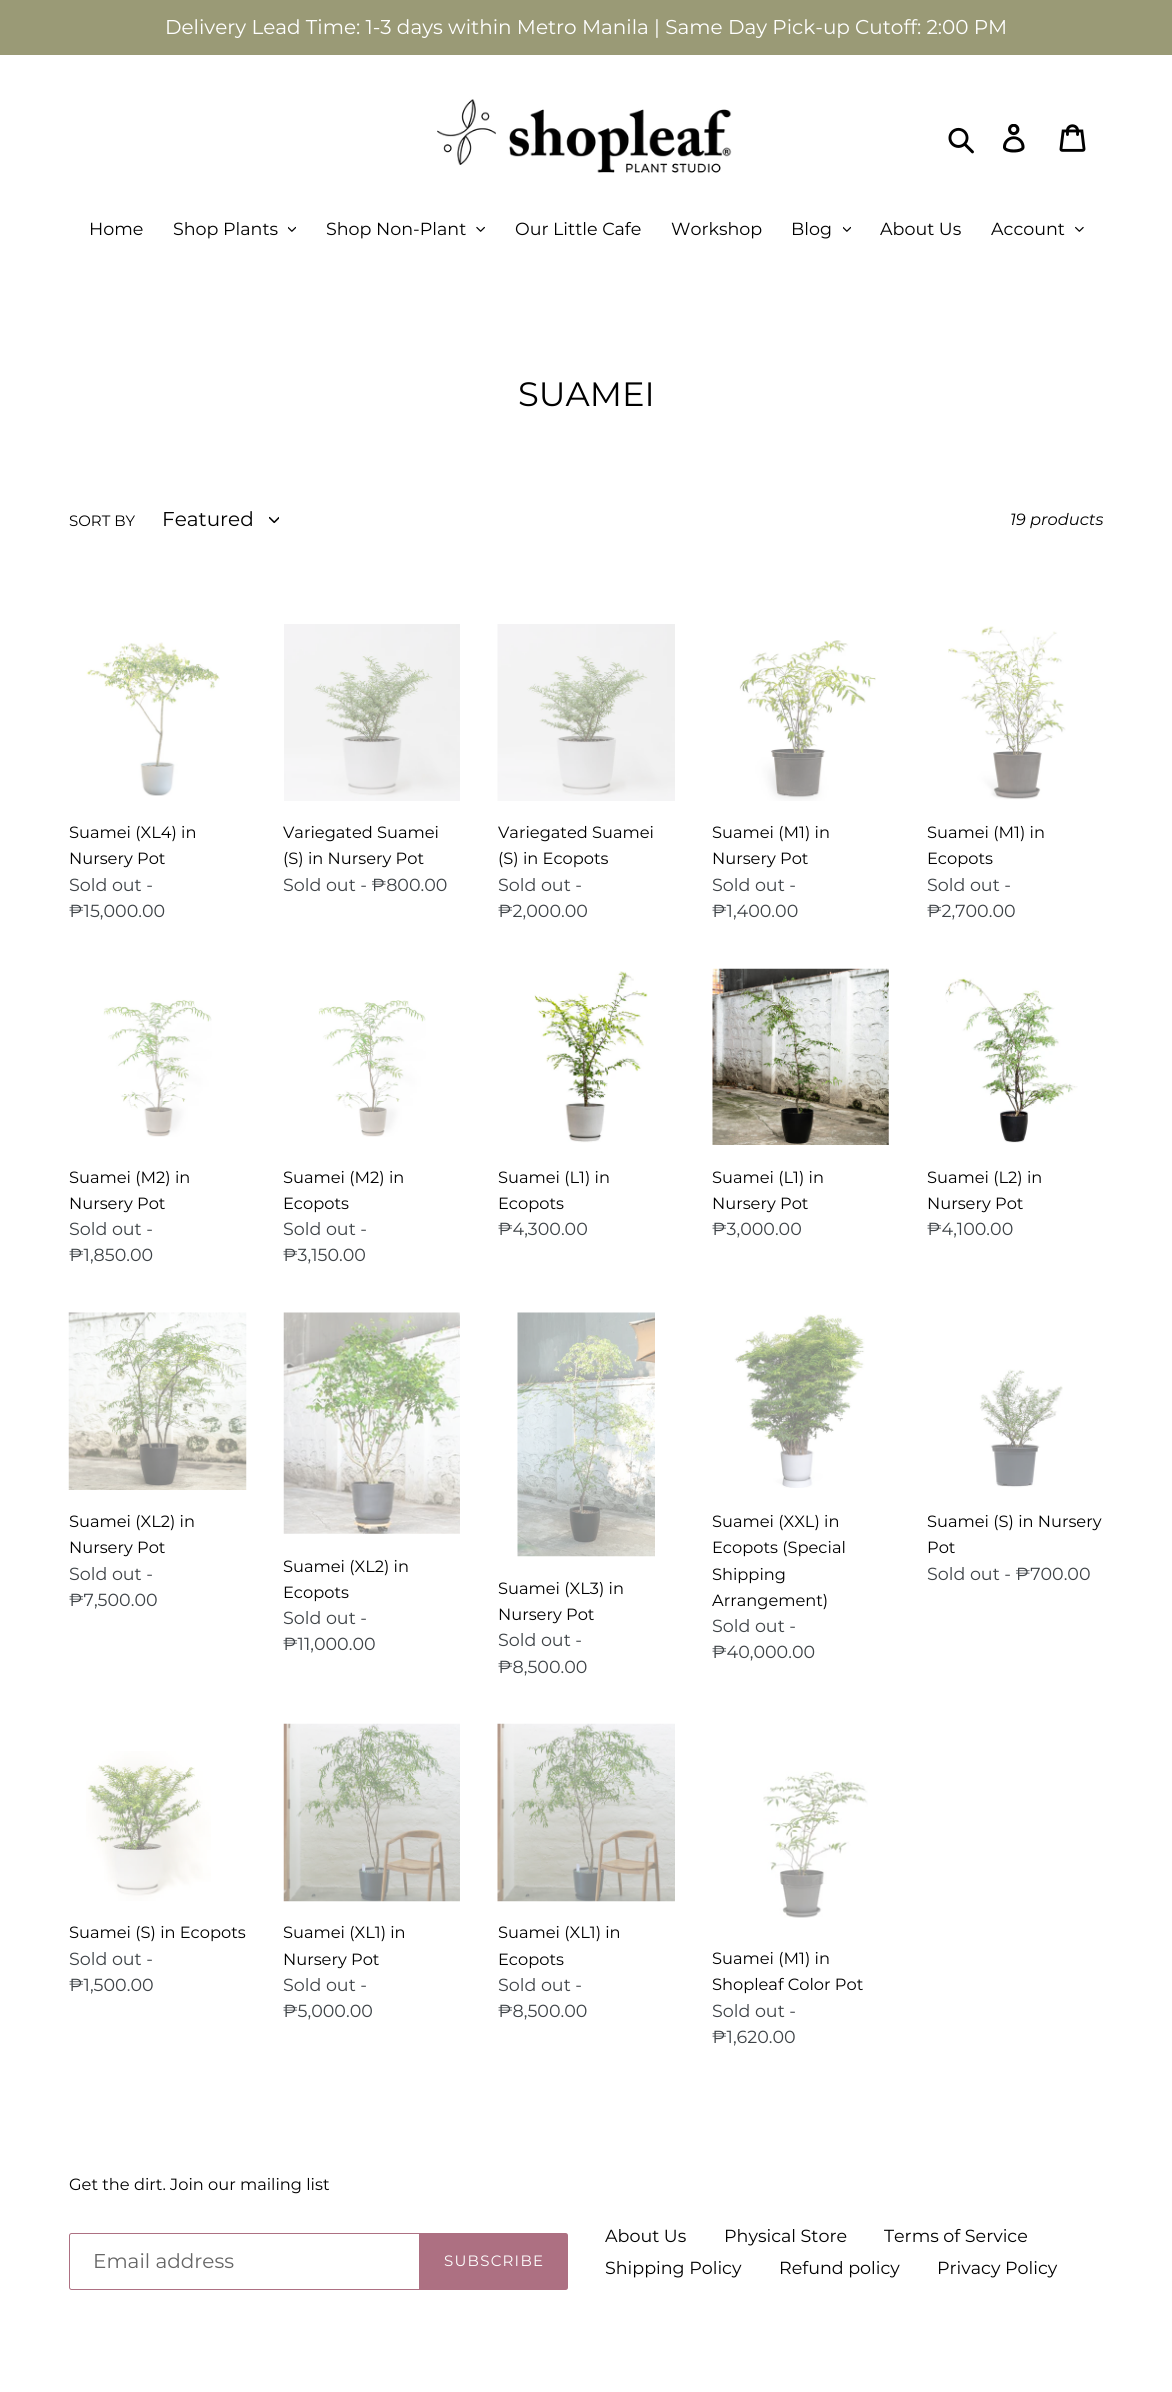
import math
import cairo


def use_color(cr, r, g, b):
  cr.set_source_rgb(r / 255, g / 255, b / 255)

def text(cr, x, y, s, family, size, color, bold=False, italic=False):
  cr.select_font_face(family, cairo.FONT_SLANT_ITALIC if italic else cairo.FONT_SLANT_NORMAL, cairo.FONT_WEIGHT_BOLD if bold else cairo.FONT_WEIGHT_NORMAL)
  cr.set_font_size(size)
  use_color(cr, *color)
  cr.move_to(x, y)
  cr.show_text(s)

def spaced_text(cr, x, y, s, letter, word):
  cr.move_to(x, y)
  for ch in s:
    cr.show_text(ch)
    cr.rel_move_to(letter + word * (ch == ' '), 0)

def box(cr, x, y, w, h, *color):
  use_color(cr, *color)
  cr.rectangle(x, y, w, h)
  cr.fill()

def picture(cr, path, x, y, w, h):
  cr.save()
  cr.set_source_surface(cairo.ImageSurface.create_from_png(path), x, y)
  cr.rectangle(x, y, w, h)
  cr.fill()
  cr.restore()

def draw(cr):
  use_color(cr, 255, 255, 255)
  cr.paint()
  box(cr, 0, 0, 1172, 55, 154, 154, 118)
  picture(cr, "img_01.png", 437, 99, 295, 74)
  picture(cr, "img_02.png", 948, 127, 26, 27)
  picture(cr, "img_03.png", 1003, 124, 22, 29)
  picture(cr, "img_04.png", 1059, 124, 27, 28)
  picture(cr, "img_05.png", 288, 226, 8, 6)
  picture(cr, "img_06.png", 476, 226, 9, 6)
  picture(cr, "img_05.png", 843, 226, 8, 6)
  picture(cr, "img_07.png", 1075, 226, 9, 6)
  picture(cr, "img_08.png", 269, 516, 10, 8)
  picture(cr, "img_09.png", 86, 642, 134, 154)
  picture(cr, "img_10.png", 284, 624, 176, 177)
  picture(cr, "img_11.png", 497, 624, 178, 177)
  picture(cr, "img_12.png", 739, 640, 137, 161)
  picture(cr, "img_13.png", 948, 626, 118, 174)
  picture(cr, "img_14.png", 103, 999, 109, 138)
  picture(cr, "img_15.png", 318, 1000, 108, 137)
  picture(cr, "img_16.png", 534, 971, 114, 172)
  picture(cr, "img_17.png", 712, 968, 177, 177)
  picture(cr, "img_18.png", 945, 977, 133, 166)
  picture(cr, "img_19.png", 68, 1312, 179, 178)
  picture(cr, "img_20.png", 734, 1314, 131, 174)
  picture(cr, "img_21.png", 979, 1369, 84, 119)
  picture(cr, "img_22.png", 283, 1312, 177, 222)
  picture(cr, "img_23.png", 517, 1312, 138, 245)
  picture(cr, "img_24.png", 86, 1751, 125, 150)
  picture(cr, "img_25.png", 283, 1723, 177, 179)
  picture(cr, "img_26.png", 497, 1723, 178, 179)
  picture(cr, "img_27.png", 763, 1771, 105, 147)
  cr.new_path()
  cr.move_to(71.5, 2233.5)
  cr.line_to(419.5, 2233.5)
  cr.line_to(419.5, 2289.5)
  cr.line_to(71.5, 2289.5)
  cr.curve_to(70.5, 2289.5, 69.5, 2288.5, 69.5, 2287.5)
  cr.line_to(69.5, 2235.5)
  cr.curve_to(69.5, 2234.5, 70.5, 2233.5, 71.5, 2233.5)
  cr.close_path()
  use_color(cr, 173, 112, 130)
  cr.set_line_width(1)
  cr.stroke()
  cr.new_path()
  cr.move_to(420, 2233)
  cr.line_to(565.5, 2233)
  cr.curve_to(567, 2233, 568, 2234, 568, 2235.5)
  cr.line_to(568, 2287.5)
  cr.curve_to(568, 2289, 567, 2290, 565.5, 2290)
  cr.line_to(420, 2290)
  cr.close_path()
  cr.fill()
  text(cr, 165, 34, "Delivery Lead Time: 1-3 days within Metro Manila | Same Day Pick-up Cutoff: 2:00 PM", "Montserrat", 20, (255, 255, 255))
  text(cr, 89, 235, "Home", "Montserrat", 17.5, (0, 0, 0))
  text(cr, 173, 235, "Shop Plants", "Montserrat", 17.5, (0, 0, 0))
  text(cr, 326, 235, "Shop Non-Plant", "Montserrat", 17.5, (0, 0, 0))
  text(cr, 515, 235, "Our Little Cafe", "Montserrat", 17.5, (0, 0, 0))
  text(cr, 671, 235, "Workshop", "Montserrat", 17.5, (0, 0, 0))
  text(cr, 791, 235, "Blog", "Montserrat", 17.5, (0, 0, 0))
  text(cr, 880, 235, "About Us", "Montserrat", 17.5, (0, 0, 0))
  text(cr, 991, 235, "Account", "Montserrat", 17.5, (0, 0, 0))
  text(cr, 518, 406, "SUAMEI", "Montserrat", 33.75, (0, 0, 0))
  text(cr, 69, 526, "SORT BY", "Montserrat", 15, (0, 0, 0))
  text(cr, 162, 526, "Featured", "Montserrat", 20, (0, 0, 0))
  text(cr, 1010, 525, "19 products", "Montserrat", 16.25, (0, 0, 0), italic=True)
  text(cr, 69, 838, "Suamei (XL4) in", "Montserrat", 16.25, (0, 0, 0))
  text(cr, 69, 864, "Nursery Pot", "Montserrat", 16.25, (0, 0, 0))
  text(cr, 69, 891, "Sold out -", "Montserrat", 17.5, (61, 66, 70))
  text(cr, 69, 917, "₱15,000.00", "Montserrat", 17.5, (61, 66, 70))
  text(cr, 283, 838, "Variegated Suamei", "Montserrat", 16.25, (0, 0, 0))
  text(cr, 283, 864, "(S) in Nursery Pot", "Montserrat", 16.25, (0, 0, 0))
  text(cr, 283, 891, "Sold out - ₱800.00", "Montserrat", 17.5, (61, 66, 70))
  text(cr, 498, 838, "Variegated Suamei", "Montserrat", 16.25, (0, 0, 0))
  text(cr, 498, 864, "(S) in Ecopots", "Montserrat", 16.25, (0, 0, 0))
  text(cr, 498, 891, "Sold out -", "Montserrat", 17.5, (61, 66, 70))
  text(cr, 498, 917, "₱2,000.00", "Montserrat", 17.5, (61, 66, 70))
  text(cr, 712, 838, "Suamei (M1) in", "Montserrat", 16.25, (0, 0, 0))
  text(cr, 712, 864, "Nursery Pot", "Montserrat", 16.25, (0, 0, 0))
  text(cr, 712, 891, "Sold out -", "Montserrat", 17.5, (61, 66, 70))
  text(cr, 712, 917, "₱1,400.00", "Montserrat", 17.5, (61, 66, 70))
  text(cr, 927, 838, "Suamei (M1) in", "Montserrat", 16.25, (0, 0, 0))
  text(cr, 927, 864, "Ecopots", "Montserrat", 16.25, (0, 0, 0))
  text(cr, 927, 891, "Sold out -", "Montserrat", 17.5, (61, 66, 70))
  text(cr, 927, 917, "₱2,700.00", "Montserrat", 17.5, (61, 66, 70))
  text(cr, 69, 1183, "Suamei (M2) in", "Montserrat", 16.25, (0, 0, 0))
  text(cr, 69, 1209, "Nursery Pot", "Montserrat", 16.25, (0, 0, 0))
  text(cr, 69, 1235, "Sold out -", "Montserrat", 17.5, (61, 66, 70))
  text(cr, 69, 1261, "₱1,850.00", "Montserrat", 17.5, (61, 66, 70))
  text(cr, 283, 1183, "Suamei (M2) in", "Montserrat", 16.25, (0, 0, 0))
  text(cr, 283, 1209, "Ecopots", "Montserrat", 16.25, (0, 0, 0))
  text(cr, 283, 1235, "Sold out -", "Montserrat", 17.5, (61, 66, 70))
  text(cr, 283, 1261, "₱3,150.00", "Montserrat", 17.5, (61, 66, 70))
  text(cr, 498, 1183, "Suamei (L1) in", "Montserrat", 16.25, (0, 0, 0))
  text(cr, 498, 1209, "Ecopots", "Montserrat", 16.25, (0, 0, 0))
  text(cr, 498, 1235, "₱4,300.00", "Montserrat", 17.5, (61, 66, 70))
  text(cr, 712, 1183, "Suamei (L1) in", "Montserrat", 16.25, (0, 0, 0))
  text(cr, 712, 1209, "Nursery Pot", "Montserrat", 16.25, (0, 0, 0))
  text(cr, 712, 1235, "₱3,000.00", "Montserrat", 17.5, (61, 66, 70))
  text(cr, 927, 1183, "Suamei (L2) in", "Montserrat", 16.25, (0, 0, 0))
  text(cr, 927, 1209, "Nursery Pot", "Montserrat", 16.25, (0, 0, 0))
  text(cr, 927, 1235, "₱4,100.00", "Montserrat", 17.5, (61, 66, 70))
  text(cr, 69, 1527, "Suamei (XL2) in", "Montserrat", 16.25, (0, 0, 0))
  text(cr, 69, 1553, "Nursery Pot", "Montserrat", 16.25, (0, 0, 0))
  text(cr, 69, 1580, "Sold out -", "Montserrat", 17.5, (61, 66, 70))
  text(cr, 69, 1606, "₱7,500.00", "Montserrat", 17.5, (61, 66, 70))
  text(cr, 712, 1527, "Suamei (XXL) in", "Montserrat", 16.25, (0, 0, 0))
  text(cr, 712, 1553, "Ecopots (Special", "Montserrat", 16.25, (0, 0, 0))
  text(cr, 712, 1580, "Shipping", "Montserrat", 16.25, (0, 0, 0))
  text(cr, 712, 1606, "Arrangement)", "Montserrat", 16.25, (0, 0, 0))
  text(cr, 712, 1632, "Sold out -", "Montserrat", 17.5, (61, 66, 70))
  text(cr, 712, 1658, "₱40,000.00", "Montserrat", 17.5, (61, 66, 70))
  text(cr, 927, 1527, "Suamei (S) in Nursery", "Montserrat", 16.25, (0, 0, 0))
  text(cr, 927, 1553, "Pot", "Montserrat", 16.25, (0, 0, 0))
  text(cr, 927, 1580, "Sold out - ₱700.00", "Montserrat", 17.5, (61, 66, 70))
  text(cr, 283, 1572, "Suamei (XL2) in", "Montserrat", 16.25, (0, 0, 0))
  text(cr, 283, 1598, "Ecopots", "Montserrat", 16.25, (0, 0, 0))
  text(cr, 283, 1624, "Sold out -", "Montserrat", 17.5, (61, 66, 70))
  text(cr, 283, 1650, "₱11,000.00", "Montserrat", 17.5, (61, 66, 70))
  text(cr, 498, 1594, "Suamei (XL3) in", "Montserrat", 16.25, (0, 0, 0))
  text(cr, 498, 1620, "Nursery Pot", "Montserrat", 16.25, (0, 0, 0))
  text(cr, 498, 1646, "Sold out -", "Montserrat", 17.5, (61, 66, 70))
  text(cr, 498, 1673, "₱8,500.00", "Montserrat", 17.5, (61, 66, 70))
  text(cr, 69, 1938, "Suamei (S) in Ecopots", "Montserrat", 16.25, (0, 0, 0))
  text(cr, 69, 1965, "Sold out -", "Montserrat", 17.5, (61, 66, 70))
  text(cr, 69, 1991, "₱1,500.00", "Montserrat", 17.5, (61, 66, 70))
  text(cr, 283, 1938, "Suamei (XL1) in", "Montserrat", 16.25, (0, 0, 0))
  text(cr, 283, 1965, "Nursery Pot", "Montserrat", 16.25, (0, 0, 0))
  text(cr, 283, 1991, "Sold out -", "Montserrat", 17.5, (61, 66, 70))
  text(cr, 283, 2017, "₱5,000.00", "Montserrat", 17.5, (61, 66, 70))
  text(cr, 498, 1938, "Suamei (XL1) in", "Montserrat", 16.25, (0, 0, 0))
  text(cr, 498, 1965, "Ecopots", "Montserrat", 16.25, (0, 0, 0))
  text(cr, 498, 1991, "Sold out -", "Montserrat", 17.5, (61, 66, 70))
  text(cr, 498, 2017, "₱8,500.00", "Montserrat", 17.5, (61, 66, 70))
  text(cr, 712, 1964, "Suamei (M1) in", "Montserrat", 16.25, (0, 0, 0))
  text(cr, 712, 1990, "Shopleaf Color Pot", "Montserrat", 16.25, (0, 0, 0))
  text(cr, 712, 2017, "Sold out -", "Montserrat", 17.5, (61, 66, 70))
  text(cr, 712, 2043, "₱1,620.00", "Montserrat", 17.5, (61, 66, 70))
  text(cr, 69, 2190, "Get the dirt. Join our mailing list", "Montserrat", 16.25, (0, 0, 0))
  text(cr, 93, 2268, "Email address", "Montserrat", 20, (102, 102, 102))
  cr.set_font_size(15)
  use_color(cr, 255, 255, 255)
  spaced_text(cr, 444, 2266, "SUBSCRIBE", 1.25, 0)
  text(cr, 605, 2242, "About Us", "Montserrat", 17.5, (0, 0, 0))
  text(cr, 724, 2242, "Physical Store", "Montserrat", 17.5, (0, 0, 0))
  text(cr, 884, 2242, "Terms of Service", "Montserrat", 17.5, (0, 0, 0))
  text(cr, 605, 2274, "Shipping Policy", "Montserrat", 17.5, (0, 0, 0))
  text(cr, 779, 2274, "Refund policy", "Montserrat", 17.5, (0, 0, 0))
  text(cr, 937, 2274, "Privacy Policy", "Montserrat", 17.5, (0, 0, 0))


surface = cairo.ImageSurface(cairo.FORMAT_RGB24, 1172, 2392)
cr = cairo.Context(surface)
options = cairo.FontOptions()
options.set_hint_metrics(cairo.HINT_METRICS_OFF)
options.set_hint_style(cairo.HINT_STYLE_NONE)
cr.set_font_options(options)
cr.set_miter_limit(4)
draw(cr)
surface.write_to_png("out.png")
